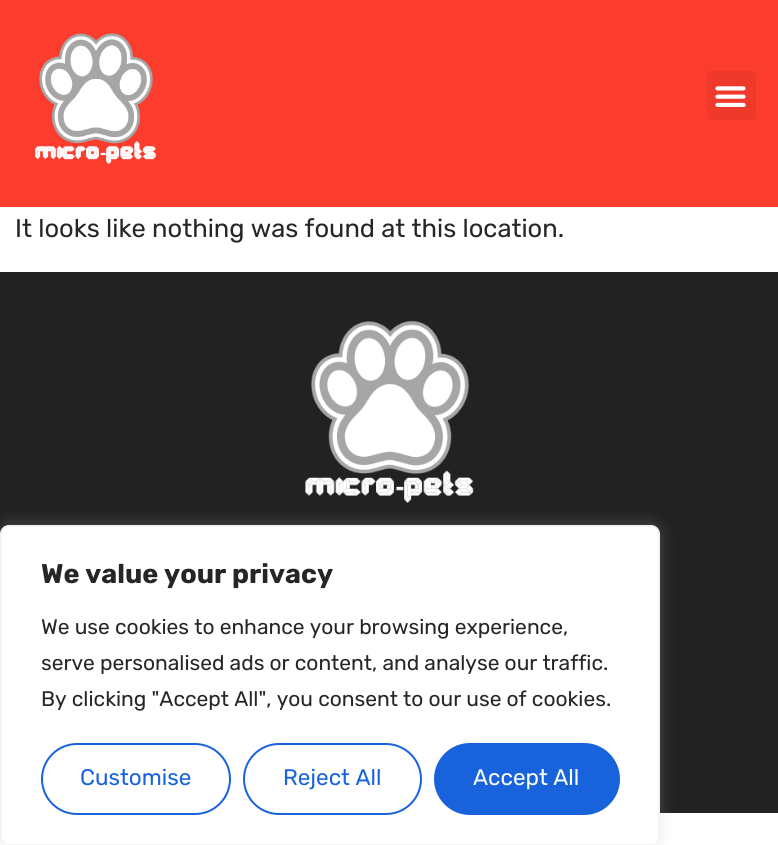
import math
import cairo


def use_color(cr, r, g, b):
  cr.set_source_rgb(r / 255, g / 255, b / 255)

def text(cr, x, y, s, family, size, color, bold=False, italic=False):
  cr.select_font_face(family, cairo.FONT_SLANT_ITALIC if italic else cairo.FONT_SLANT_NORMAL, cairo.FONT_WEIGHT_BOLD if bold else cairo.FONT_WEIGHT_NORMAL)
  cr.set_font_size(size)
  use_color(cr, *color)
  cr.move_to(x, y)
  cr.show_text(s)

def box(cr, x, y, w, h, *color):
  use_color(cr, *color)
  cr.rectangle(x, y, w, h)
  cr.fill()

def round_rect(cr, x, y, w, h, r):
  cr.new_sub_path()
  for i, (u, v) in enumerate([(x + w - r, y + h - r), (x + r, y + h - r), (x + r, y + r), (x + w - r, y + r)]):
    cr.arc(u, v, r, i * math.pi / 2, (i + 1) * math.pi / 2)
  cr.close_path()

def shadow(cr, x, y, w, h, r, blur, alpha):
  cr.push_group_with_content(cairo.CONTENT_ALPHA)
  cr.set_operator(cairo.OPERATOR_SOURCE)
  for i in range(15, -16, -2):
    e = blur * i / 6
    if min(w, h) + 2 * e > 0:
      cr.set_source_rgba(0, 0, 0, alpha * math.erfc((i - 1) / 8.5) / 2)
      round_rect(cr, x - e, y - e, w + 2 * e, h + 2 * e, max(0, min(r + e + blur * .6, min(w, h) / 2 + e)))
      cr.fill()
  cr.mask(cr.pop_group())

def picture(cr, path, x, y, w, h):
  cr.save()
  cr.set_source_surface(cairo.ImageSurface.create_from_png(path), x, y)
  cr.rectangle(x, y, w, h)
  cr.fill()
  cr.restore()

def draw(cr):
  use_color(cr, 255, 255, 255)
  cr.paint()
  box(cr, 0, 0, 778, 207, 252, 60, 45)
  picture(cr, "img_01.png", 35, 33, 121, 132)
  use_color(cr, 239, 57, 43)
  round_rect(cr, 707, 71, 49, 49, 5)
  cr.fill()
  picture(cr, "img_02.png", 715, 86, 31, 21)
  box(cr, 0, 272, 778, 541, 34, 34, 34)
  picture(cr, "img_03.png", 305, 320, 169, 183)
  use_color(cr, 172, 171, 171)
  shadow(cr, 0, 524, 660, 321, 9, 7.5, 0.3)
  use_color(cr, 255, 255, 255)
  round_rect(cr, 1, 526, 658, 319, 8)
  cr.fill_preserve()
  use_color(cr, 244, 244, 244)
  cr.stroke()
  round_rect(cr, 42, 744, 188, 70, 35)
  use_color(cr, 24, 99, 220)
  cr.stroke()
  round_rect(cr, 244, 744, 177, 70, 35)
  cr.stroke()
  round_rect(cr, 435, 744, 184, 70, 35)
  cr.fill_preserve()
  cr.stroke()
  text(cr, 15, 237, "It looks like nothing was found at this location.", "Rubik", 25.5, (38, 38, 38))
  text(cr, 41, 583, "We value your privacy", "Rubik", 27, (38, 38, 38), bold=True)
  text(cr, 41, 634, "We use cookies to enhance your browsing experience,", "Rubik", 21, (38, 38, 38))
  text(cr, 41, 670, "serve personalised ads or content, and analyse our traffic.", "Rubik", 21, (38, 38, 38))
  text(cr, 41, 706, "By clicking \"Accept All\", you consent to our use of cookies.", "Rubik", 21, (38, 38, 38))
  text(cr, 80, 785, "Customise", "Rubik", 22.5, (24, 99, 220))
  text(cr, 283, 785, "Reject All", "Rubik", 22.5, (24, 99, 220))
  text(cr, 473, 785, "Accept All", "Rubik", 22.5, (255, 255, 255))


surface = cairo.ImageSurface(cairo.FORMAT_RGB24, 778, 845)
cr = cairo.Context(surface)
options = cairo.FontOptions()
options.set_hint_metrics(cairo.HINT_METRICS_OFF)
options.set_hint_style(cairo.HINT_STYLE_NONE)
cr.set_font_options(options)
cr.set_miter_limit(4)
draw(cr)
surface.write_to_png("out.png")
